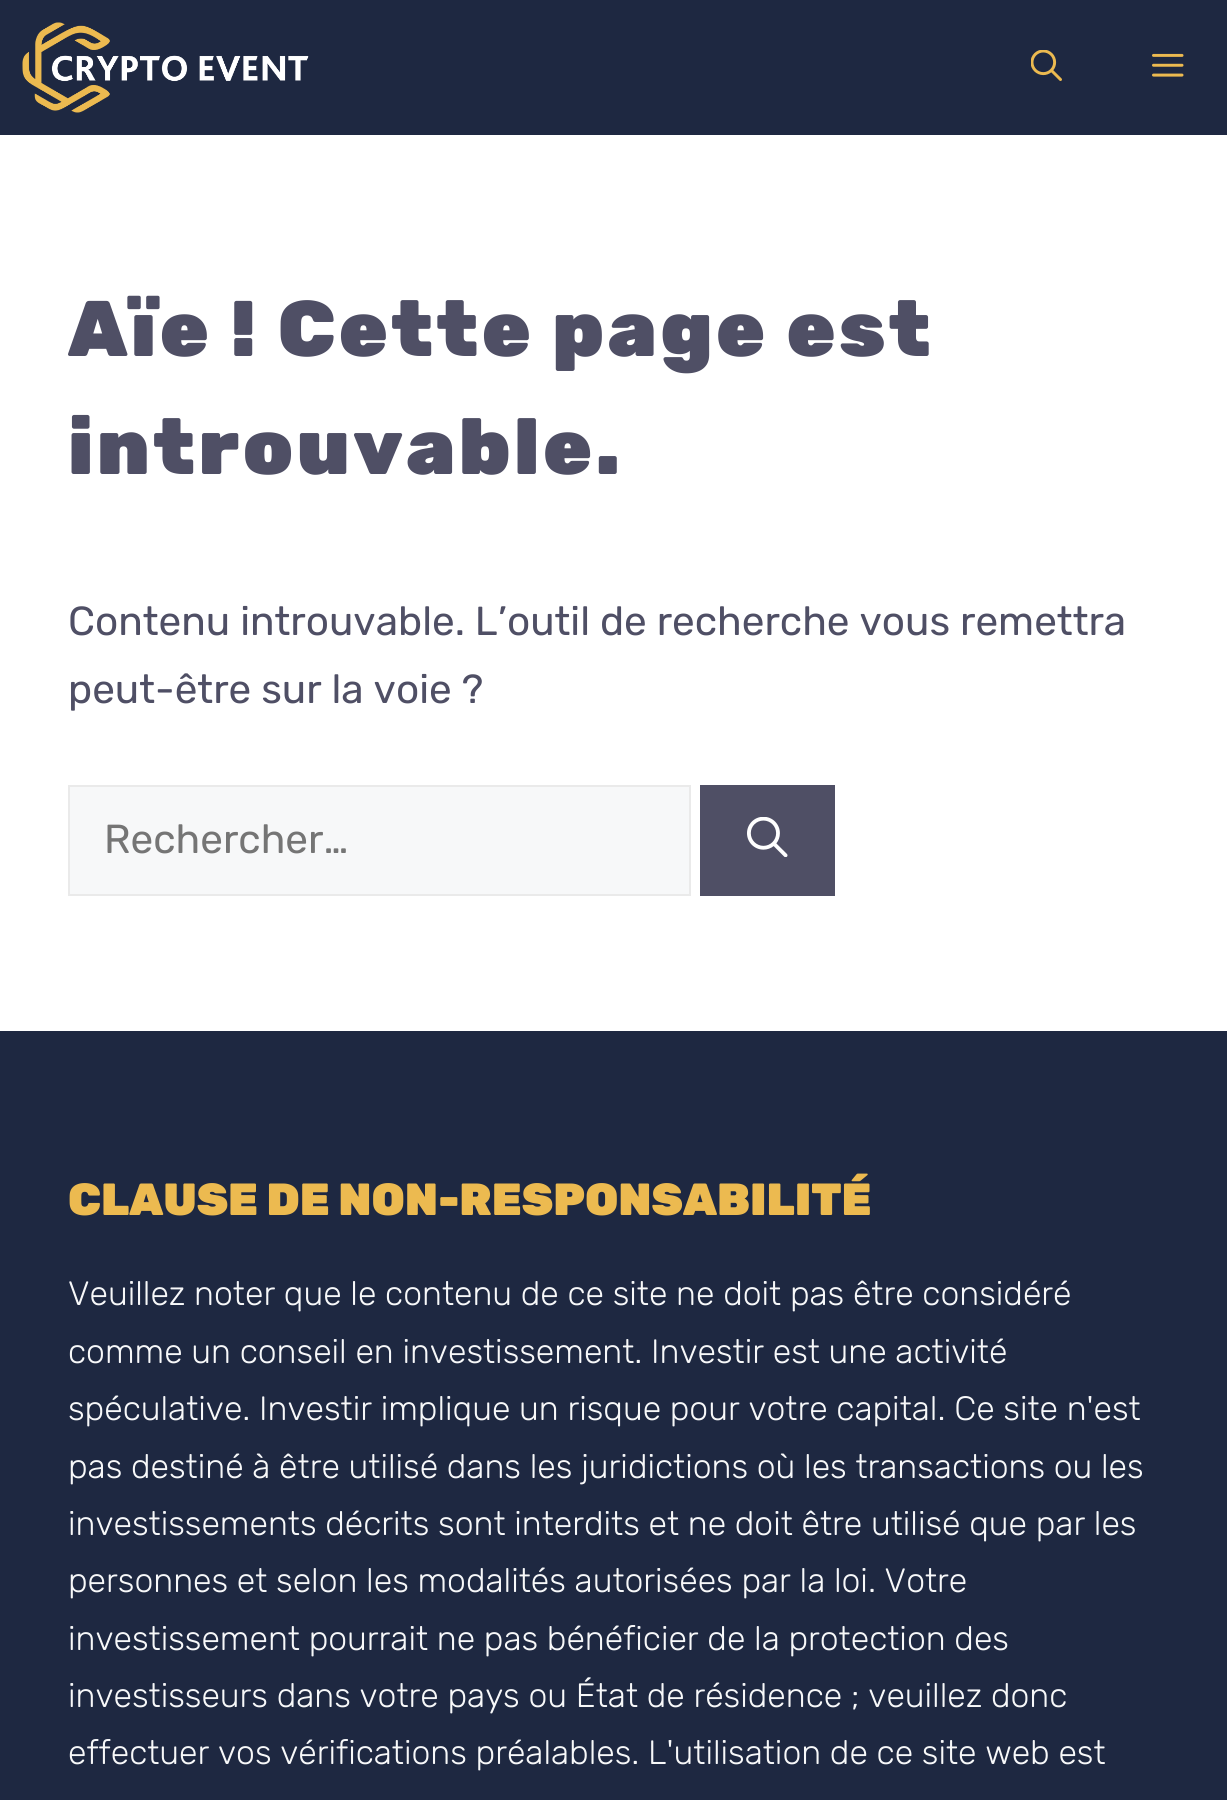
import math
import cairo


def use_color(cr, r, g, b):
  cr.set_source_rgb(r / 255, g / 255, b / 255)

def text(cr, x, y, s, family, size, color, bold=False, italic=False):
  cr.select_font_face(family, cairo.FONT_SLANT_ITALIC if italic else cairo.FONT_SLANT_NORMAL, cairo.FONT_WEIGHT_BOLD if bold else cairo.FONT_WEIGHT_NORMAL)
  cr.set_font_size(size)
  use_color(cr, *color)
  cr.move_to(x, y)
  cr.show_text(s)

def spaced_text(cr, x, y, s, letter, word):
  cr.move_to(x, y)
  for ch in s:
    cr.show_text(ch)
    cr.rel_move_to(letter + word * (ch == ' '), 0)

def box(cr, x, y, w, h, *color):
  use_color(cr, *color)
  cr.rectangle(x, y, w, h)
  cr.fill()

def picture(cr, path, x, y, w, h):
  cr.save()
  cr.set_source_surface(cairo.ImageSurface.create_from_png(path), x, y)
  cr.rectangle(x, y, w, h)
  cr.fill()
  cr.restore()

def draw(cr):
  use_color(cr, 255, 255, 255)
  cr.paint()
  box(cr, 0, 0, 1227, 135, 30, 40, 65)
  picture(cr, "img_01.png", 22, 22, 287, 91)
  picture(cr, "img_02.png", 1031, 50, 31, 31)
  picture(cr, "img_03.png", 1152, 53, 32, 24)
  use_color(cr, 247, 248, 249)
  cr.rectangle(69, 786, 621, 109)
  cr.fill_preserve()
  use_color(cr, 234, 234, 234)
  cr.stroke()
  box(cr, 700, 785, 135, 111, 79, 79, 101)
  picture(cr, "img_04.png", 747, 817, 41, 40)
  box(cr, 0, 1031, 1227, 769, 30, 40, 65)
  cr.select_font_face("Rubik Black")
  cr.set_font_size(78.75)
  use_color(cr, 79, 79, 101)
  spaced_text(cr, 68, 356, "Aïe ! Cette page est", 3.4, 0)
  spaced_text(cr, 68, 474, "introuvable.", 3.4, 0)
  text(cr, 68, 635, "Contenu introuvable. L’outil de recherche vous remettra", "Rubik", 40.5, (79, 79, 101))
  text(cr, 68, 703, "peut-être sur la voie ?", "Rubik", 40.5, (79, 79, 101))
  text(cr, 104, 853, "Rechercher…", "Rubik", 40.5, (117, 117, 117))
  text(cr, 68, 1215, "CLAUSE DE NON-RESPONSABILITÉ", "Rubik Black", 45, (236, 186, 80))
  text(cr, 68, 1305, "Veuillez noter que le contenu de ce site ne doit pas être considéré", "Rubik Light", 33.75, (247, 248, 249))
  text(cr, 68, 1363, "comme un conseil en investissement. Investir est une activité", "Rubik Light", 33.75, (247, 248, 249))
  text(cr, 68, 1420, "spéculative. Investir implique un risque pour votre capital. Ce site n'est", "Rubik Light", 33.75, (247, 248, 249))
  text(cr, 68, 1478, "pas destiné à être utilisé dans les juridictions où les transactions ou les", "Rubik Light", 33.75, (247, 248, 249))
  text(cr, 68, 1535, "investissements décrits sont interdits et ne doit être utilisé que par les", "Rubik Light", 33.75, (247, 248, 249))
  text(cr, 68, 1592, "personnes et selon les modalités autorisées par la loi. Votre", "Rubik Light", 33.75, (247, 248, 249))
  text(cr, 68, 1650, "investissement pourrait ne pas bénéficier de la protection des", "Rubik Light", 33.75, (247, 248, 249))
  text(cr, 68, 1707, "investisseurs dans votre pays ou État de résidence ; veuillez donc", "Rubik Light", 33.75, (247, 248, 249))
  text(cr, 68, 1764, "effectuer vos vérifications préalables. L'utilisation de ce site web est", "Rubik Light", 33.75, (247, 248, 249))


surface = cairo.ImageSurface(cairo.FORMAT_RGB24, 1227, 1800)
cr = cairo.Context(surface)
options = cairo.FontOptions()
options.set_hint_metrics(cairo.HINT_METRICS_OFF)
options.set_hint_style(cairo.HINT_STYLE_NONE)
cr.set_font_options(options)
cr.set_miter_limit(4)
draw(cr)
surface.write_to_png("out.png")
